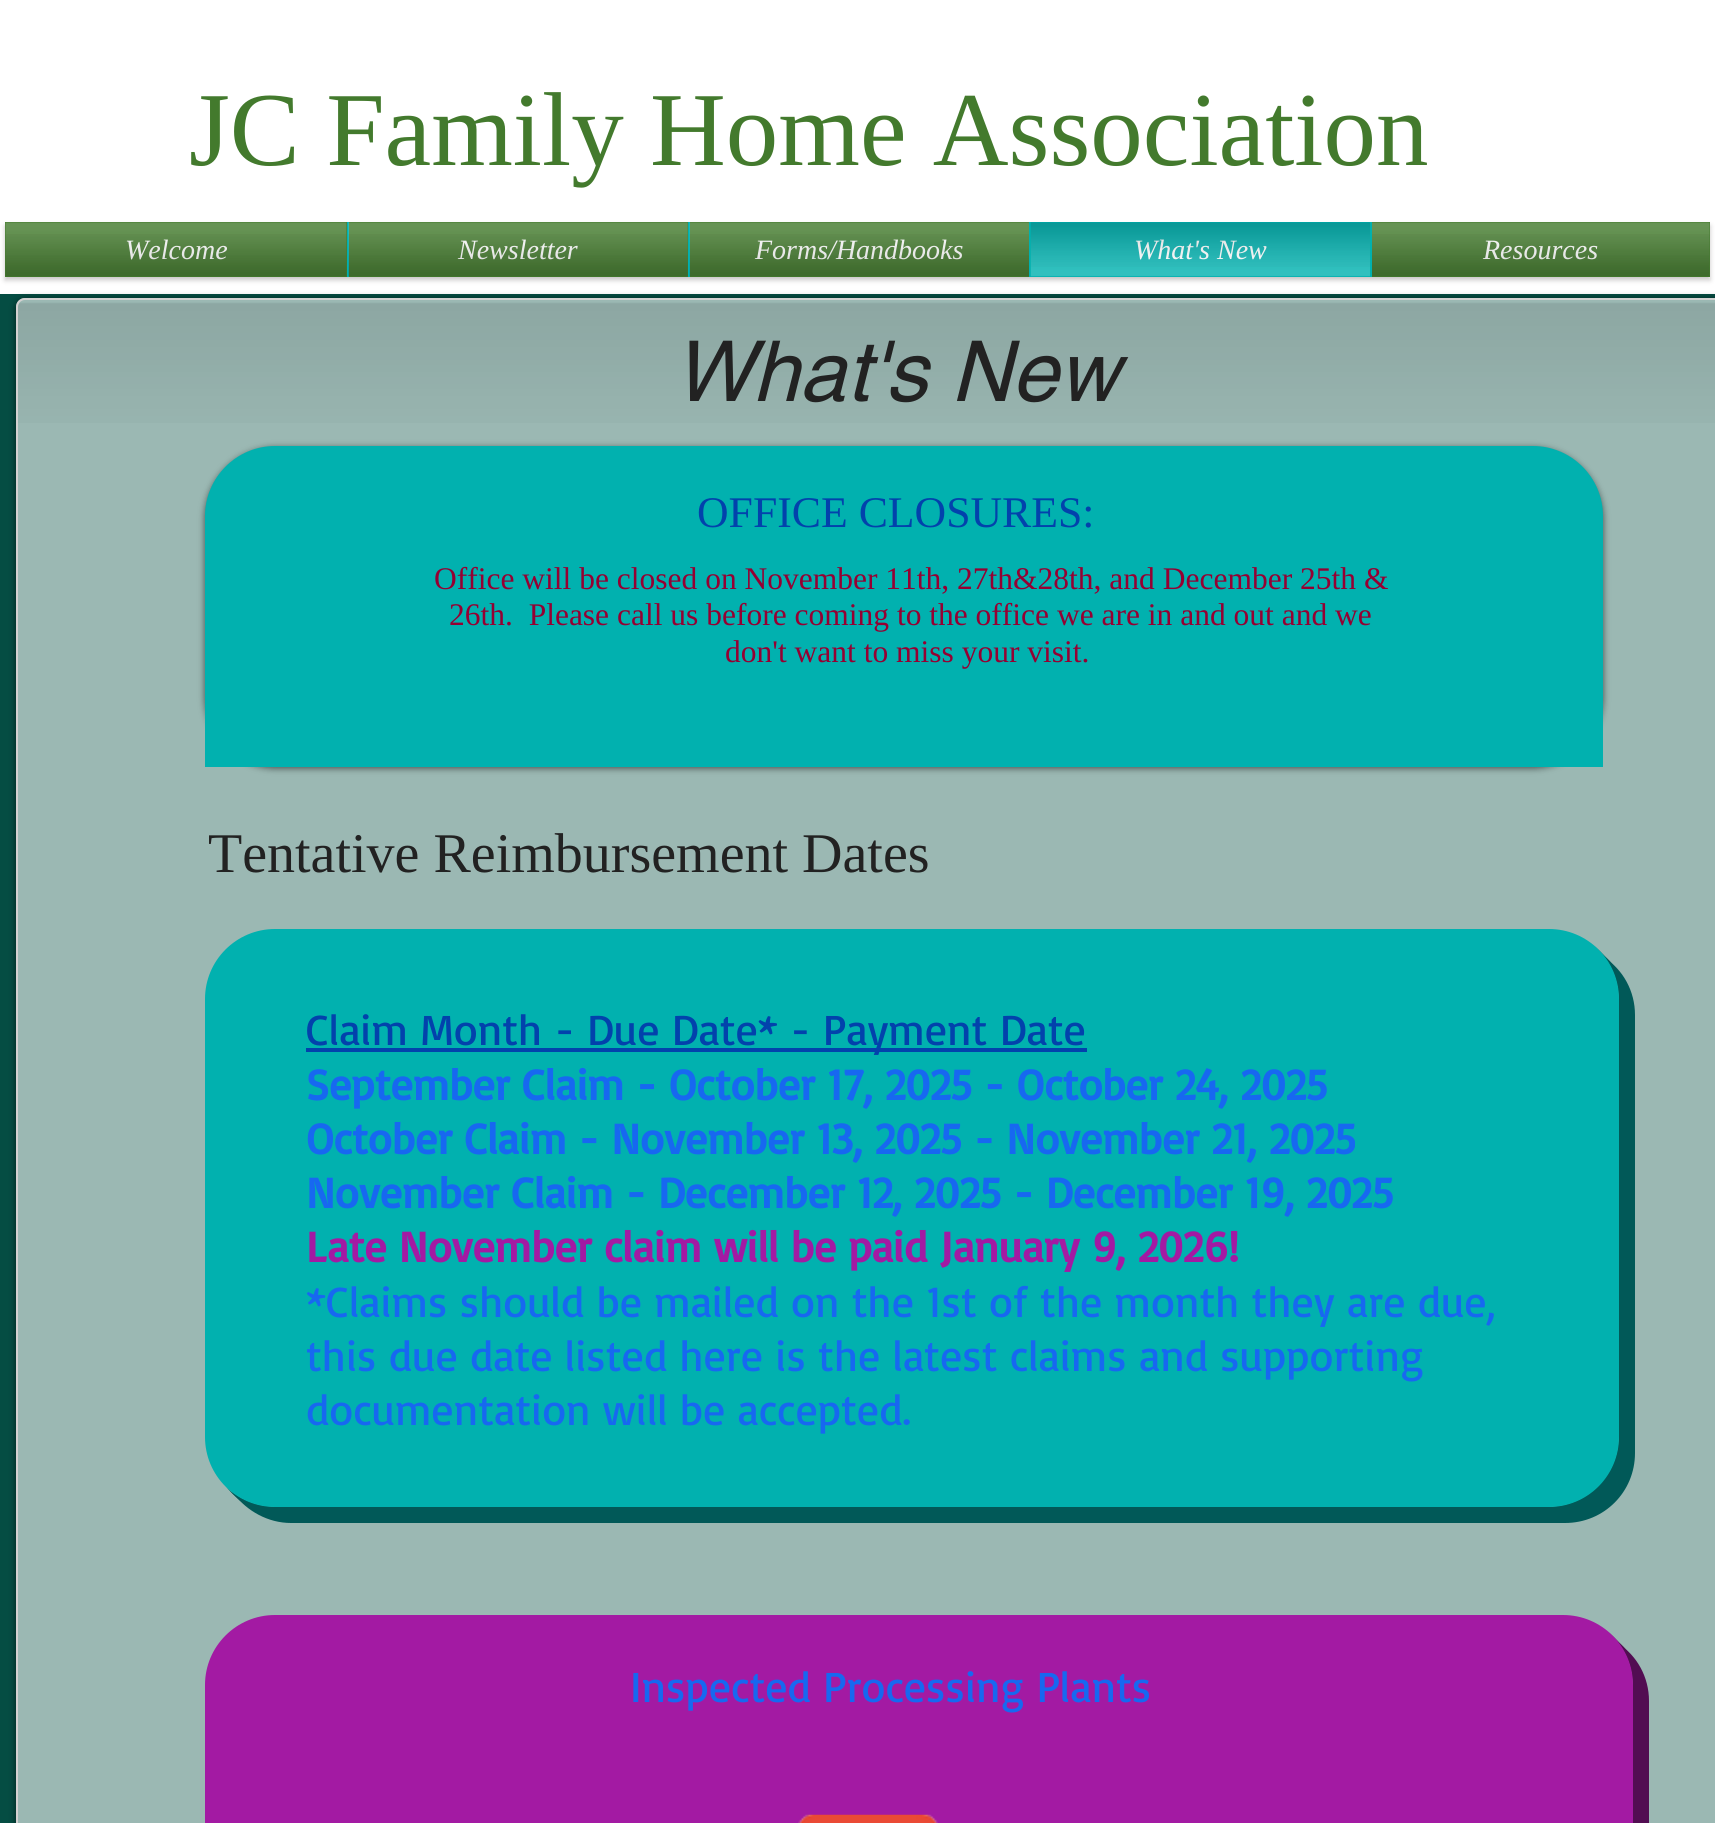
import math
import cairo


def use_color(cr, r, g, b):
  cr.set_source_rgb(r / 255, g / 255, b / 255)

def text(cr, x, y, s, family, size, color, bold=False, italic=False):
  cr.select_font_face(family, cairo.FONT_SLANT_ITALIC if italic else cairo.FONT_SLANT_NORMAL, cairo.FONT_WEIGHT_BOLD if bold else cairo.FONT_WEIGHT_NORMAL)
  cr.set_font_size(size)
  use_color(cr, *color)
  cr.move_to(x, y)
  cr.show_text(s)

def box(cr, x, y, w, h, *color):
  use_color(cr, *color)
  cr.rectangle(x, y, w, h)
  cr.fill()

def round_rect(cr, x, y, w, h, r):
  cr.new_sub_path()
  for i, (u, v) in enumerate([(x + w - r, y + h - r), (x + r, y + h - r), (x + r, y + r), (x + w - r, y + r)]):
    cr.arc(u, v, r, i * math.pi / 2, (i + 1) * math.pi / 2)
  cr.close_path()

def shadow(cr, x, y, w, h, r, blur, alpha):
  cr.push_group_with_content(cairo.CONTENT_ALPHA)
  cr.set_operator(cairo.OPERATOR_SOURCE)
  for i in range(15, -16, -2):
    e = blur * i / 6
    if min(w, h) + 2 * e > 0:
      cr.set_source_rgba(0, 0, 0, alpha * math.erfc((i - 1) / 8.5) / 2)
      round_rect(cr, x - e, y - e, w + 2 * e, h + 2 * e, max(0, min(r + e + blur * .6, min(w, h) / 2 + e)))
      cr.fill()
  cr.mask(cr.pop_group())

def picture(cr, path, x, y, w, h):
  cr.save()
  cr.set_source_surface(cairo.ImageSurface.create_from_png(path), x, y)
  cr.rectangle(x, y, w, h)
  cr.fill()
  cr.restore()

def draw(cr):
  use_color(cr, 5, 77, 67)
  cr.paint()
  box(cr, 0, 0, 1715, 294, 255, 255, 255)
  use_color(cr, 162, 158, 158)
  shadow(cr, 5, 226, 1705, 54, 0, 2.5, 0.6)
  box(cr, 5, 222, 342, 55, 67, 122, 45)
  box(cr, 349, 222, 339, 55, 67, 122, 45)
  box(cr, 347, 222, 2, 55, 1, 177, 175)
  box(cr, 690, 222, 339, 55, 67, 122, 45)
  box(cr, 688, 222, 2, 55, 1, 177, 175)
  box(cr, 1029, 222, 343, 55, 1, 177, 175)
  box(cr, 1372, 222, 338, 55, 67, 122, 45)
  use_color(cr, 0, 0, 0)
  shadow(cr, 16, 299, 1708, 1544, 9, 3.5, 0.6)
  use_color(cr, 155, 184, 179)
  cr.new_path()
  cr.move_to(25, 298)
  cr.line_to(1715, 298)
  cr.line_to(1715, 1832)
  cr.line_to(25, 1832)
  cr.curve_to(20, 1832, 16, 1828, 16, 1823)
  cr.line_to(16, 307)
  cr.curve_to(16, 302, 20, 298, 25, 298)
  cr.close_path()
  cr.fill()
  picture(cr, "img_11.png", 16, 302, 1699, 121)
  round_rect(cr, 17, 299, 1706, 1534, 8)
  use_color(cr, 212, 209, 209)
  cr.stroke()
  use_color(cr, 0, 0, 0)
  shadow(cr, 205, 448, 1398, 320, 70, 3.5, 0.6)
  use_color(cr, 1, 177, 175)
  cr.new_path()
  cr.move_to(275, 446)
  cr.line_to(1533, 446)
  cr.curve_to(1571.5, 446, 1603, 477.5, 1603, 516)
  cr.line_to(1603, 767)
  cr.line_to(205, 767)
  cr.line_to(205, 516)
  cr.curve_to(205, 477.5, 236.5, 446, 275, 446)
  cr.close_path()
  cr.fill()
  use_color(cr, 1, 89, 88)
  cr.new_path()
  cr.move_to(234, 1494)
  cr.curve_to(247, 1511, 268, 1523, 291, 1523)
  cr.line_to(1565, 1523)
  cr.curve_to(1604, 1523, 1635, 1492, 1635, 1453)
  cr.line_to(1635, 1015)
  cr.curve_to(1635, 991, 1623, 970, 1605, 958)
  cr.curve_to(1614, 969, 1619, 984, 1619, 999)
  cr.line_to(1619, 1437)
  cr.curve_to(1619, 1475, 1587, 1507, 1549, 1507)
  cr.line_to(275, 1507)
  cr.curve_to(260, 1507, 246, 1502, 234, 1494)
  cr.close_path()
  cr.fill()
  cr.new_path()
  cr.move_to(232, 1492)
  cr.curve_to(245, 1508, 265, 1519, 287, 1519)
  cr.line_to(1561, 1519)
  cr.curve_to(1600, 1519, 1631, 1488, 1631, 1449)
  cr.line_to(1631, 1012)
  cr.curve_to(1631, 990, 1621, 970, 1605, 958)
  cr.curve_to(1614, 969, 1619, 984, 1619, 999)
  cr.line_to(1619, 1437)
  cr.curve_to(1619, 1475, 1587, 1507, 1549, 1507)
  cr.line_to(275, 1507)
  cr.curve_to(259, 1507, 244, 1501, 232, 1492)
  cr.close_path()
  cr.fill()
  cr.new_path()
  cr.move_to(230, 1491)
  cr.curve_to(243, 1506, 262, 1516, 284, 1516)
  cr.line_to(1558, 1516)
  cr.curve_to(1597, 1516, 1628, 1485, 1628, 1446)
  cr.line_to(1628, 1008)
  cr.curve_to(1628, 986, 1618, 966, 1601, 953)
  cr.curve_to(1612, 965, 1619, 982, 1619, 999)
  cr.line_to(1619, 1437)
  cr.curve_to(1619, 1475, 1587, 1507, 1549, 1507)
  cr.line_to(275, 1507)
  cr.curve_to(258, 1507, 242, 1501, 230, 1491)
  cr.close_path()
  cr.fill()
  cr.new_path()
  cr.move_to(228, 1489)
  cr.curve_to(241, 1503, 259, 1512, 280, 1512)
  cr.line_to(1554, 1512)
  cr.curve_to(1593, 1512, 1624, 1481, 1624, 1442)
  cr.line_to(1624, 1005)
  cr.curve_to(1624, 985, 1616, 968, 1603, 955)
  cr.curve_to(1613, 967, 1619, 982, 1619, 999)
  cr.line_to(1619, 1437)
  cr.curve_to(1619, 1475, 1587, 1507, 1549, 1507)
  cr.line_to(275, 1507)
  cr.curve_to(257, 1507, 240, 1500, 228, 1489)
  cr.close_path()
  cr.fill()
  cr.new_path()
  cr.move_to(226, 1487)
  cr.curve_to(239, 1501, 257, 1509, 277, 1509)
  cr.line_to(1551, 1509)
  cr.curve_to(1590, 1509, 1621, 1478, 1621, 1439)
  cr.line_to(1621, 1001)
  cr.curve_to(1621, 978, 1610, 958, 1593, 945)
  cr.curve_to(1609, 958, 1619, 977, 1619, 999)
  cr.line_to(1619, 1437)
  cr.curve_to(1619, 1475, 1587, 1507, 1549, 1507)
  cr.line_to(275, 1507)
  cr.curve_to(256, 1507, 239, 1499, 226, 1487)
  cr.close_path()
  cr.fill()
  use_color(cr, 1, 177, 175)
  round_rect(cr, 205, 929, 1414, 578, 70)
  cr.fill()
  box(cr, 306, 1048, 781, 4, 2, 66, 172)
  use_color(cr, 82, 13, 82)
  cr.new_path()
  cr.move_to(235, 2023)
  cr.curve_to(248, 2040, 268, 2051, 291, 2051)
  cr.line_to(1579, 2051)
  cr.curve_to(1618, 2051, 1649, 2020, 1649, 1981)
  cr.line_to(1649, 1701)
  cr.curve_to(1649, 1677, 1637, 1656, 1619, 1644)
  cr.curve_to(1628, 1655, 1633, 1670, 1633, 1685)
  cr.line_to(1633, 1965)
  cr.curve_to(1633, 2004, 1601, 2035, 1563, 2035)
  cr.line_to(275, 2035)
  cr.curve_to(260, 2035, 246, 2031, 235, 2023)
  cr.close_path()
  cr.fill()
  cr.new_path()
  cr.move_to(231, 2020)
  cr.curve_to(244, 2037, 264, 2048, 287, 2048)
  cr.line_to(1575, 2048)
  cr.curve_to(1614, 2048, 1645, 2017, 1645, 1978)
  cr.line_to(1645, 1698)
  cr.curve_to(1645, 1676, 1635, 1656, 1619, 1644)
  cr.curve_to(1628, 1655, 1633, 1670, 1633, 1685)
  cr.line_to(1633, 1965)
  cr.curve_to(1633, 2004, 1601, 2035, 1563, 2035)
  cr.line_to(275, 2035)
  cr.curve_to(258, 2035, 243, 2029, 231, 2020)
  cr.close_path()
  cr.fill()
  cr.new_path()
  cr.move_to(231, 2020)
  cr.curve_to(244, 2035, 263, 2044, 284, 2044)
  cr.line_to(1572, 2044)
  cr.curve_to(1611, 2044, 1642, 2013, 1642, 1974)
  cr.line_to(1642, 1694)
  cr.curve_to(1642, 1672, 1632, 1652, 1615, 1639)
  cr.curve_to(1626, 1651, 1633, 1668, 1633, 1685)
  cr.line_to(1633, 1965)
  cr.curve_to(1633, 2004, 1601, 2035, 1563, 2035)
  cr.line_to(275, 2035)
  cr.curve_to(258, 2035, 243, 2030, 231, 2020)
  cr.close_path()
  cr.fill()
  cr.new_path()
  cr.move_to(226, 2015)
  cr.curve_to(239, 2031, 258, 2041, 280, 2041)
  cr.line_to(1568, 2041)
  cr.curve_to(1607, 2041, 1638, 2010, 1638, 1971)
  cr.line_to(1638, 1691)
  cr.curve_to(1638, 1671, 1630, 1654, 1617, 1641)
  cr.curve_to(1627, 1653, 1633, 1668, 1633, 1685)
  cr.line_to(1633, 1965)
  cr.curve_to(1633, 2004, 1601, 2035, 1563, 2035)
  cr.line_to(275, 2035)
  cr.curve_to(256, 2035, 238, 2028, 226, 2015)
  cr.close_path()
  cr.fill()
  cr.new_path()
  cr.move_to(233, 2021)
  cr.curve_to(245, 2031, 260, 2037, 277, 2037)
  cr.line_to(1565, 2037)
  cr.curve_to(1604, 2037, 1635, 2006, 1635, 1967)
  cr.line_to(1635, 1687)
  cr.curve_to(1635, 1664, 1624, 1644, 1607, 1631)
  cr.curve_to(1623, 1644, 1633, 1663, 1633, 1685)
  cr.line_to(1633, 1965)
  cr.curve_to(1633, 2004, 1601, 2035, 1563, 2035)
  cr.line_to(275, 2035)
  cr.curve_to(259, 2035, 245, 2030, 233, 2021)
  cr.close_path()
  cr.fill()
  use_color(cr, 163, 26, 163)
  round_rect(cr, 205, 1615, 1428, 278, 70)
  cr.fill()
  picture(cr, "img_12.png", 798, 1814, 140, 9)
  text(cr, 189, 165, "JC Family Home Association", "Liberation Serif", 105, (67, 122, 45))
  text(cr, 125, 259, "Welcome", "Liberation Serif", 28, (255, 255, 255), italic=True)
  picture(cr, "img_01.png", 5, 222, 342, 54)
  picture(cr, "img_02.png", 5, 234, 342, 43)
  text(cr, 458, 259, "Newsletter", "Liberation Serif", 28, (255, 255, 255), italic=True)
  picture(cr, "img_03.png", 348, 222, 340, 54)
  picture(cr, "img_04.png", 348, 234, 340, 43)
  text(cr, 755, 259, "Forms/Handbooks", "Liberation Serif", 28, (255, 255, 255), italic=True)
  picture(cr, "img_05.png", 689, 222, 340, 54)
  picture(cr, "img_06.png", 689, 234, 340, 43)
  text(cr, 1134, 259, "What's New", "Liberation Serif", 28, (255, 255, 255), italic=True)
  picture(cr, "img_07.png", 1030, 222, 340, 45)
  picture(cr, "img_08.png", 1030, 223, 340, 54)
  text(cr, 1483, 259, "Resources", "Liberation Serif", 28, (255, 255, 255), italic=True)
  picture(cr, "img_09.png", 1372, 222, 338, 54)
  picture(cr, "img_10.png", 1372, 234, 338, 43)
  text(cr, 673, 401, "What's New", "helvetica", 84, (34, 34, 34), italic=True)
  text(cr, 697, 527, "OFFICE CLOSURES:", "Liberation Serif", 43.75, (2, 66, 172))
  text(cr, 434, 589, "Office will be closed on November 11th, 27th&28th, and December 25th &", "Liberation Serif", 31.5, (149, 0, 50))
  text(cr, 449, 625, "26th.  Please call us before coming to the office we are in and out and we", "Liberation Serif", 31.5, (149, 0, 50))
  text(cr, 725, 662, "don't want to miss your visit.", "Liberation Serif", 31.5, (149, 0, 50))
  text(cr, 208, 872, "Tentative Reimbursement Dates", "Liberation Serif", 56, (34, 34, 34))
  text(cr, 306, 1045, "Claim Month - Due Date* - Payment Date", "Basic", 43.75, (2, 66, 172))
  text(cr, 306, 1100, "September Claim - October 17, 2025 - October 24, 2025", "Basic", 43.75, (23, 104, 240), bold=True)
  text(cr, 306, 1154, "October Claim - November 13, 2025 - November 21, 2025", "Basic", 43.75, (23, 104, 240), bold=True)
  text(cr, 306, 1208, "November Claim - December 12, 2025 - December 19, 2025", "Basic", 43.75, (23, 104, 240), bold=True)
  text(cr, 306, 1262, "Late November claim will be paid January 9, 2026!", "Basic", 43.75, (163, 26, 163), bold=True)
  text(cr, 306, 1317, "*Claims should be mailed on the 1st of the month they are due,", "Basic", 43.75, (23, 104, 240))
  text(cr, 306, 1371, "this due date listed here is the latest claims and supporting", "Basic", 43.75, (23, 104, 240))
  text(cr, 306, 1425, "documentation will be accepted.", "Basic", 43.75, (23, 104, 240))
  text(cr, 630, 1702, "Inspected Processing Plants", "Basic", 43.75, (23, 104, 240))


surface = cairo.ImageSurface(cairo.FORMAT_RGB24, 1715, 1823)
cr = cairo.Context(surface)
options = cairo.FontOptions()
options.set_hint_metrics(cairo.HINT_METRICS_OFF)
options.set_hint_style(cairo.HINT_STYLE_NONE)
cr.set_font_options(options)
cr.set_miter_limit(4)
draw(cr)
surface.write_to_png("out.png")
